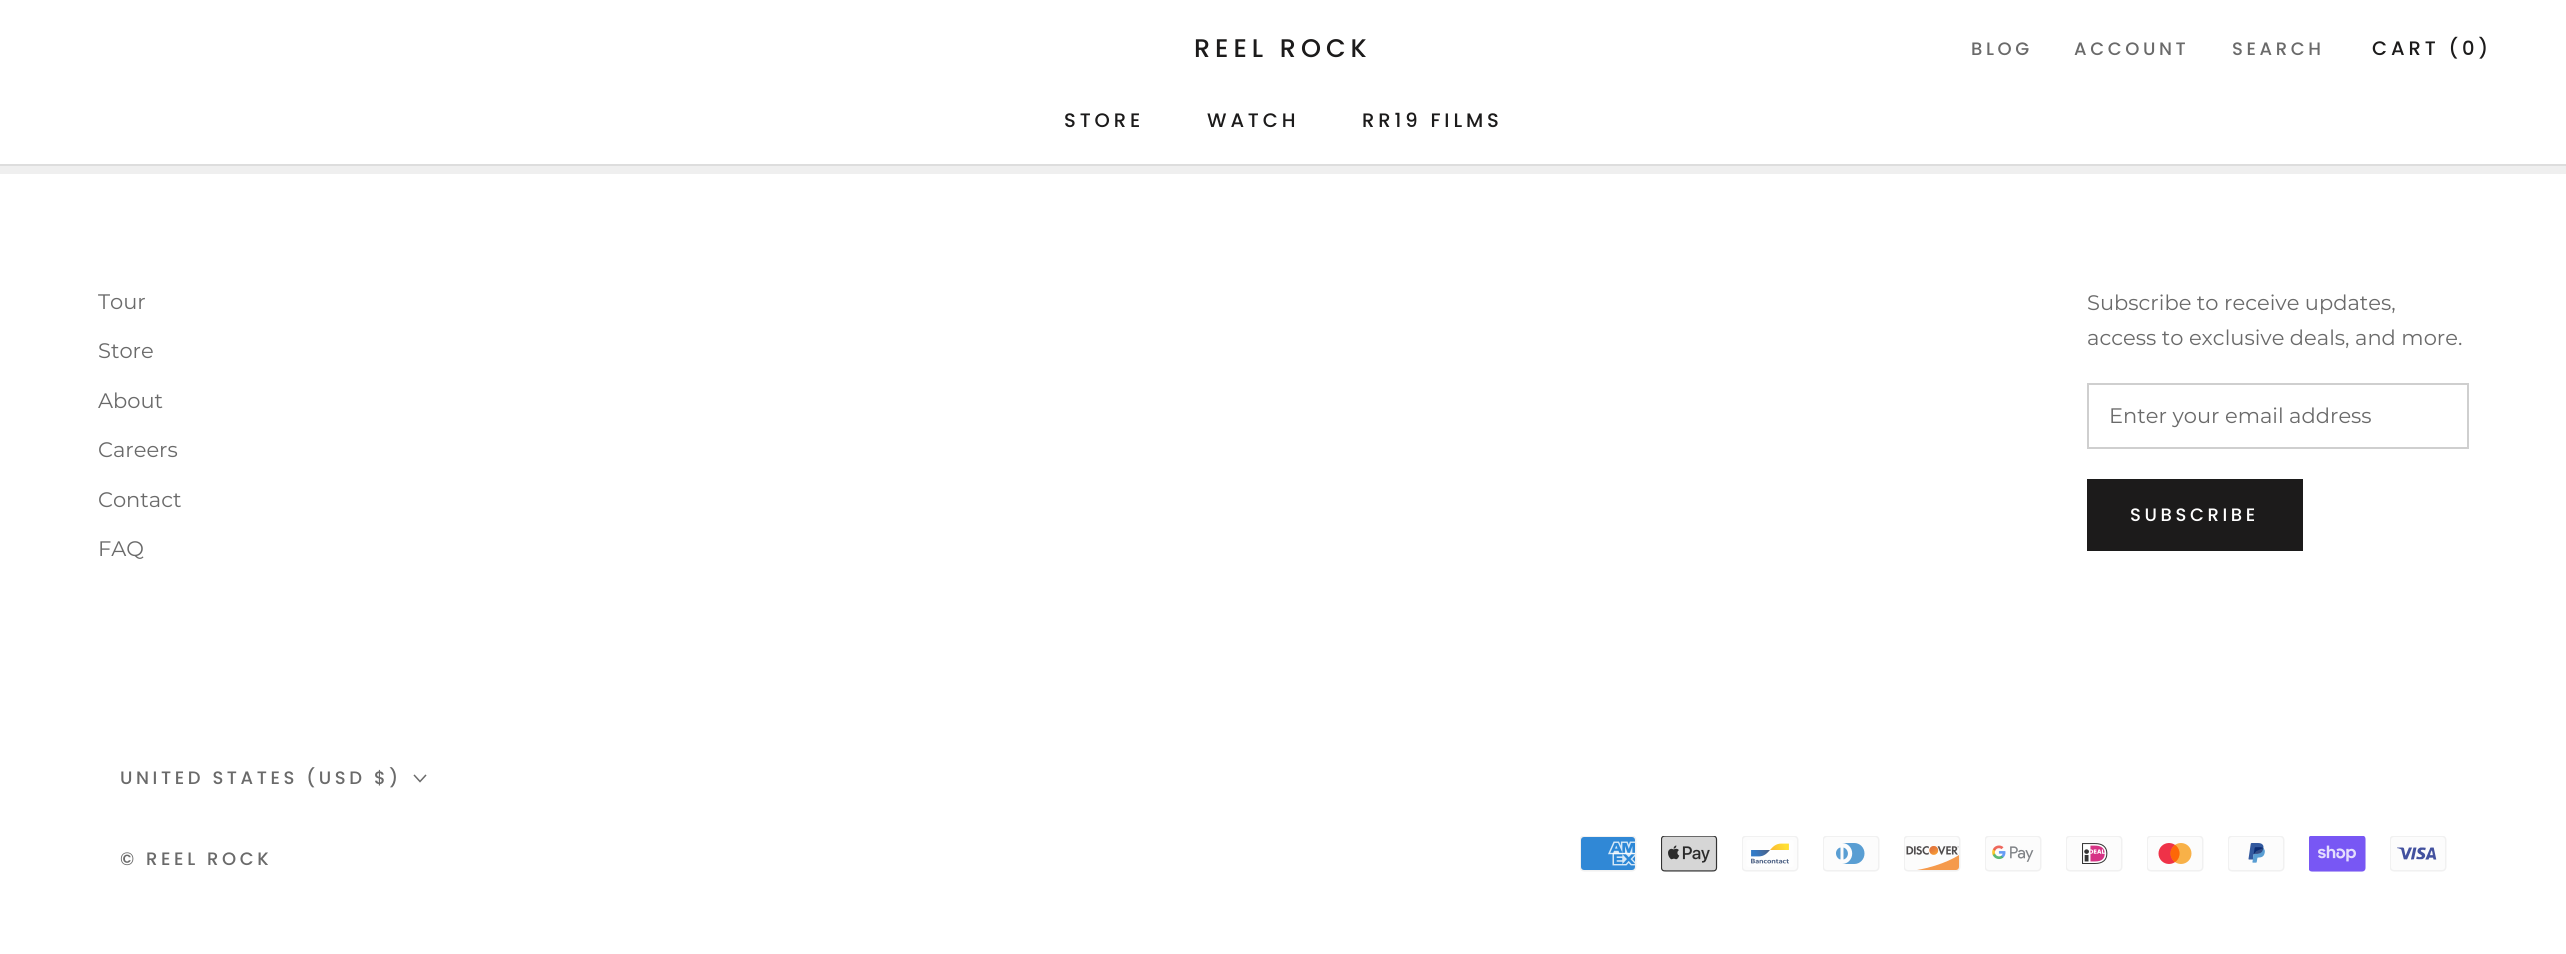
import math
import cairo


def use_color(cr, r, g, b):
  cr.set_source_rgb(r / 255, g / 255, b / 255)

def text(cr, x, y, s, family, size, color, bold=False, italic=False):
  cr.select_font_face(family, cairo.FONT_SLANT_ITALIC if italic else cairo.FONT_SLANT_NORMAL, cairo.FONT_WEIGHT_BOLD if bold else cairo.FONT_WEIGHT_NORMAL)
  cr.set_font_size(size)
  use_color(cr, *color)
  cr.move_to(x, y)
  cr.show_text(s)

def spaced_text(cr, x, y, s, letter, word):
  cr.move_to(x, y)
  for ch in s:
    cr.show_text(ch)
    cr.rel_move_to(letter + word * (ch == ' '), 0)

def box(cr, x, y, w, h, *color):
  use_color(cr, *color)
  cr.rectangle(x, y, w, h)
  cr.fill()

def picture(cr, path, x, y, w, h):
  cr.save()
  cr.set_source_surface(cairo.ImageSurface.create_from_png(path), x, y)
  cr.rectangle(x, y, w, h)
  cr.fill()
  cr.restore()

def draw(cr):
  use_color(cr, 239, 239, 239)
  cr.paint()
  box(cr, 0, 0, 2566, 164, 255, 255, 255)
  box(cr, 0, 164, 2566, 2, 221, 221, 221)
  box(cr, 0, 174, 2566, 780, 255, 255, 255)
  cr.rectangle(2088, 384, 380, 64)
  use_color(cr, 207, 207, 207)
  cr.stroke()
  cr.rectangle(2088, 480, 214, 70)
  use_color(cr, 28, 27, 27)
  cr.stroke()
  box(cr, 2089, 481, 212, 68, 28, 27, 27)
  cr.new_path()
  cr.move_to(425.5, 775.5)
  cr.line_to(420, 781.5)
  cr.line_to(414.5, 775.5)
  use_color(cr, 106, 106, 106)
  cr.set_line_width(1.5)
  cr.set_line_cap(cairo.LINE_CAP_SQUARE)
  cr.stroke()
  picture(cr, "img_01.png", 1580, 836, 57, 36)
  picture(cr, "img_02.png", 1661, 836, 57, 36)
  picture(cr, "img_03.png", 1742, 836, 57, 36)
  picture(cr, "img_04.png", 1823, 836, 57, 36)
  picture(cr, "img_05.png", 1904, 836, 57, 36)
  picture(cr, "img_06.png", 1985, 836, 57, 36)
  picture(cr, "img_07.png", 2066, 836, 57, 36)
  picture(cr, "img_08.png", 2147, 836, 57, 36)
  picture(cr, "img_09.png", 2228, 836, 57, 36)
  picture(cr, "img_10.png", 2309, 836, 57, 36)
  picture(cr, "img_11.png", 2390, 836, 57, 36)
  cr.select_font_face("Poppins Medium")
  cr.set_font_size(25.5)
  use_color(cr, 28, 27, 27)
  spaced_text(cr, 1194, 57, "REEL ROCK", 5, 0)
  cr.set_font_size(18)
  use_color(cr, 106, 106, 106)
  spaced_text(cr, 1971, 55, "BLOG", 3.6, 0)
  spaced_text(cr, 2074, 55, "ACCOUNT", 3.6, 0)
  spaced_text(cr, 2232, 55, "SEARCH", 3.6, 0)
  cr.set_font_size(19.5)
  use_color(cr, 28, 27, 27)
  spaced_text(cr, 2372, 55, "CART (0)", 3.9, 0)
  spaced_text(cr, 1064, 127, "STORE", 3.9, 0)
  spaced_text(cr, 1207, 127, "WATCH", 3.9, 0)
  spaced_text(cr, 1362, 127, "RR19 FILMS", 3.9, 0)
  text(cr, 98, 309, "Tour", "Montserrat", 21, (106, 106, 106))
  text(cr, 98, 358, "Store", "Montserrat", 21, (106, 106, 106))
  text(cr, 98, 408, "About", "Montserrat", 21, (106, 106, 106))
  text(cr, 98, 457, "Careers", "Montserrat", 21, (106, 106, 106))
  text(cr, 98, 507, "Contact", "Montserrat", 21, (106, 106, 106))
  text(cr, 98, 556, "FAQ", "Montserrat", 21, (106, 106, 106))
  text(cr, 2087, 310, "Subscribe to receive updates,", "Montserrat", 21, (106, 106, 106))
  text(cr, 2087, 345, "access to exclusive deals, and more.", "Montserrat", 21, (106, 106, 106))
  text(cr, 2109, 423, "Enter your email address", "Montserrat", 21, (106, 106, 106))
  cr.select_font_face("Poppins Medium")
  cr.set_font_size(18)
  use_color(cr, 255, 255, 255)
  spaced_text(cr, 2130, 521, "SUBSCRIBE", 3.6, 0)
  use_color(cr, 106, 106, 106)
  spaced_text(cr, 120, 784, "UNITED STATES (USD $)", 3.6, 0)
  spaced_text(cr, 120, 865, "© REEL ROCK", 3.6, 0)


surface = cairo.ImageSurface(cairo.FORMAT_RGB24, 2566, 954)
cr = cairo.Context(surface)
options = cairo.FontOptions()
options.set_hint_metrics(cairo.HINT_METRICS_OFF)
options.set_hint_style(cairo.HINT_STYLE_NONE)
cr.set_font_options(options)
cr.set_miter_limit(4)
draw(cr)
surface.write_to_png("out.png")
